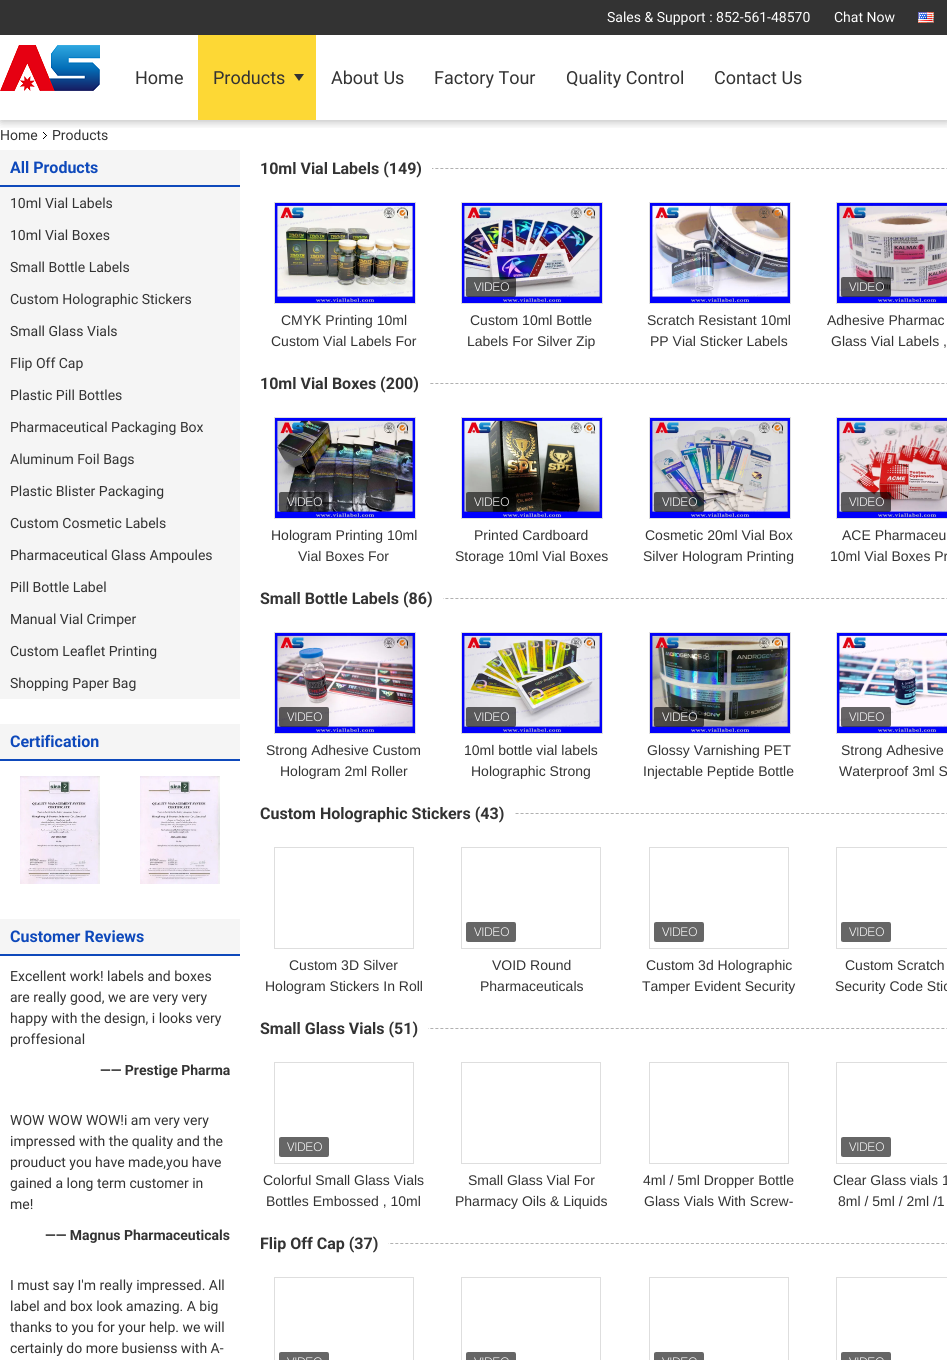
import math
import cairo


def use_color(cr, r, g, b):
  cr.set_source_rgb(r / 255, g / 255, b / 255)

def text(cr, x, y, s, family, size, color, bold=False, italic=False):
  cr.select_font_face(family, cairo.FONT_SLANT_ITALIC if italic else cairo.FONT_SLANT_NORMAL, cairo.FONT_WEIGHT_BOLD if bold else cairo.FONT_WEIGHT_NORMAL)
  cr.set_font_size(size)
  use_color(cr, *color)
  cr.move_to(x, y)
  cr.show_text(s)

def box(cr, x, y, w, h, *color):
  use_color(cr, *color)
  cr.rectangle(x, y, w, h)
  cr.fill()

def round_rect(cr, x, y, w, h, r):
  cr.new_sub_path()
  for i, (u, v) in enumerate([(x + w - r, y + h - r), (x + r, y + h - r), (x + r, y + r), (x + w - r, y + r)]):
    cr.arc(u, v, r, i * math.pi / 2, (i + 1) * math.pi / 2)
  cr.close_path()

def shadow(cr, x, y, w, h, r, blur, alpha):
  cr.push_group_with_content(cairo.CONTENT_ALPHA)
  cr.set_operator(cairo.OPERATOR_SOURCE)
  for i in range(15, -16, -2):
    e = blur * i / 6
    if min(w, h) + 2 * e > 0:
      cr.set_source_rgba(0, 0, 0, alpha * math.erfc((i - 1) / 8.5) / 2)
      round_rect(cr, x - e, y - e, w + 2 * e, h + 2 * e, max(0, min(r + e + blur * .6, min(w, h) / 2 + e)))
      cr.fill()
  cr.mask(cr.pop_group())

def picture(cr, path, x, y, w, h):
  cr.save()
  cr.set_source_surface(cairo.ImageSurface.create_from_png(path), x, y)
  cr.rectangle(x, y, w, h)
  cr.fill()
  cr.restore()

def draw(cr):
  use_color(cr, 255, 255, 255)
  cr.paint()
  cr.save()
  cr.rectangle(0, 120, 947, 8)
  cr.clip()
  use_color(cr, 0, 0, 0)
  shadow(cr, 1, 1, 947, 120, 0, 5, 0.3)
  cr.restore()
  box(cr, 0, 0, 947, 35, 51, 51, 51)
  picture(cr, "img_01.png", 918, 12, 16, 11)
  picture(cr, "img_02.png", 0, 45, 100, 46)
  box(cr, 198, 35, 118, 85, 253, 216, 53)
  use_color(cr, 51, 51, 51)
  cr.new_path()
  cr.move_to(294, 74)
  cr.line_to(304, 74)
  cr.line_to(299, 81)
  cr.close_path()
  cr.fill()
  picture(cr, "img_03.png", 43, 132, 4, 7)
  box(cr, 0, 150, 240, 549, 245, 245, 245)
  box(cr, 0, 185, 240, 2, 14, 73, 187)
  box(cr, 0, 724, 240, 35, 245, 245, 245)
  box(cr, 0, 759, 240, 2, 14, 73, 187)
  picture(cr, "img_04.png", 20, 776, 80, 108)
  picture(cr, "img_05.png", 140, 776, 80, 108)
  box(cr, 0, 919, 240, 35, 245, 245, 245)
  box(cr, 0, 954, 240, 2, 14, 73, 187)
  cr.new_path()
  cr.move_to(250, 168.5)
  cr.line_to(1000, 168.5)
  use_color(cr, 176, 176, 176)
  cr.set_line_width(1)
  cr.set_dash([3, 2.01])
  cr.stroke()
  box(cr, 250, 168, 182, 1, 255, 255, 255)
  cr.rectangle(274.5, 202.5, 141, 101)
  use_color(cr, 222, 222, 222)
  cr.set_dash([])
  cr.stroke()
  picture(cr, "img_06.png", 275, 203, 140, 100)
  cr.rectangle(461.5, 202.5, 141, 101)
  cr.stroke()
  picture(cr, "img_07.png", 462, 203, 140, 100)
  picture(cr, "img_08.png", 466, 277, 50, 20)
  cr.rectangle(649.5, 202.5, 141, 101)
  cr.stroke()
  picture(cr, "img_09.png", 650, 203, 140, 100)
  cr.rectangle(836.5, 202.5, 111, 101)
  cr.stroke()
  picture(cr, "img_10.png", 837, 203, 110, 100)
  picture(cr, "img_11.png", 841, 277, 50, 20)
  cr.new_path()
  cr.move_to(250, 383.5)
  cr.line_to(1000, 383.5)
  use_color(cr, 176, 176, 176)
  cr.set_dash([3, 2.01])
  cr.stroke()
  box(cr, 250, 383, 179, 1, 255, 255, 255)
  cr.rectangle(274.5, 417.5, 141, 101)
  use_color(cr, 222, 222, 222)
  cr.set_dash([])
  cr.stroke()
  picture(cr, "img_12.png", 275, 418, 140, 100)
  picture(cr, "img_13.png", 279, 492, 50, 20)
  cr.rectangle(461.5, 417.5, 141, 101)
  cr.stroke()
  picture(cr, "img_14.png", 462, 418, 140, 100)
  picture(cr, "img_15.png", 466, 492, 50, 20)
  cr.rectangle(649.5, 417.5, 141, 101)
  cr.stroke()
  picture(cr, "img_16.png", 650, 418, 140, 100)
  picture(cr, "img_17.png", 654, 492, 50, 20)
  cr.rectangle(836.5, 417.5, 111, 101)
  cr.stroke()
  picture(cr, "img_18.png", 837, 418, 110, 100)
  picture(cr, "img_19.png", 841, 492, 50, 20)
  cr.new_path()
  cr.move_to(250, 598.5)
  cr.line_to(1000, 598.5)
  use_color(cr, 176, 176, 176)
  cr.set_dash([3, 2.01])
  cr.stroke()
  box(cr, 250, 598, 193, 1, 255, 255, 255)
  cr.rectangle(274.5, 632.5, 141, 101)
  use_color(cr, 222, 222, 222)
  cr.set_dash([])
  cr.stroke()
  picture(cr, "img_20.png", 275, 633, 140, 100)
  picture(cr, "img_21.png", 279, 707, 50, 20)
  cr.rectangle(461.5, 632.5, 141, 101)
  cr.stroke()
  picture(cr, "img_22.png", 462, 633, 140, 100)
  picture(cr, "img_23.png", 466, 707, 50, 20)
  cr.rectangle(649.5, 632.5, 141, 101)
  cr.stroke()
  picture(cr, "img_24.png", 650, 633, 140, 100)
  picture(cr, "img_25.png", 654, 707, 50, 20)
  cr.rectangle(836.5, 632.5, 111, 101)
  cr.stroke()
  picture(cr, "img_26.png", 837, 633, 110, 100)
  picture(cr, "img_27.png", 841, 707, 50, 20)
  cr.new_path()
  cr.move_to(250, 813.5)
  cr.line_to(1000, 813.5)
  use_color(cr, 176, 176, 176)
  cr.set_dash([3, 2.01])
  cr.stroke()
  box(cr, 250, 813, 264, 1, 255, 255, 255)
  cr.rectangle(274.5, 847.5, 139, 101)
  use_color(cr, 222, 222, 222)
  cr.set_dash([])
  cr.stroke()
  cr.rectangle(461.5, 847.5, 139, 101)
  cr.stroke()
  picture(cr, "img_28.png", 466, 922, 50, 20)
  cr.rectangle(649.5, 847.5, 139, 101)
  cr.stroke()
  picture(cr, "img_28.png", 654, 922, 50, 20)
  cr.rectangle(836.5, 847.5, 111, 101)
  cr.stroke()
  picture(cr, "img_28.png", 841, 922, 50, 20)
  cr.new_path()
  cr.move_to(250, 1028.5)
  cr.line_to(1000, 1028.5)
  use_color(cr, 176, 176, 176)
  cr.set_dash([3, 2.01])
  cr.stroke()
  box(cr, 250, 1028, 178, 1, 255, 255, 255)
  cr.rectangle(274.5, 1062.5, 139, 101)
  use_color(cr, 222, 222, 222)
  cr.set_dash([])
  cr.stroke()
  picture(cr, "img_28.png", 279, 1137, 50, 20)
  cr.rectangle(461.5, 1062.5, 139, 101)
  cr.stroke()
  cr.rectangle(649.5, 1062.5, 139, 101)
  cr.stroke()
  cr.rectangle(836.5, 1062.5, 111, 101)
  cr.stroke()
  picture(cr, "img_28.png", 841, 1137, 50, 20)
  cr.new_path()
  cr.move_to(250, 1243.5)
  cr.line_to(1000, 1243.5)
  use_color(cr, 176, 176, 176)
  cr.set_dash([3, 2.01])
  cr.stroke()
  box(cr, 250, 1243, 138, 1, 255, 255, 255)
  cr.rectangle(274.5, 1277.5, 139, 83)
  use_color(cr, 222, 222, 222)
  cr.set_dash([])
  cr.stroke()
  picture(cr, "img_29.png", 279, 1352, 50, 8)
  cr.rectangle(461.5, 1277.5, 139, 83)
  cr.stroke()
  picture(cr, "img_29.png", 466, 1352, 50, 8)
  cr.rectangle(649.5, 1277.5, 139, 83)
  cr.stroke()
  picture(cr, "img_29.png", 654, 1352, 50, 8)
  cr.rectangle(836.5, 1277.5, 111, 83)
  cr.stroke()
  picture(cr, "img_29.png", 841, 1352, 50, 8)
  text(cr, 607, 22, "Sales & Support : 852-561-48570", "Roboto", 14, (255, 255, 255))
  text(cr, 834, 22, "Chat Now", "Roboto", 14, (255, 255, 255))
  text(cr, 135, 84, "Home", "Roboto", 18, (51, 51, 51))
  text(cr, 213, 84, "Products", "Roboto", 18, (51, 51, 51))
  text(cr, 331, 84, "About Us", "Roboto", 18, (51, 51, 51))
  text(cr, 434, 84, "Factory Tour", "Roboto", 18, (51, 51, 51))
  text(cr, 566, 84, "Quality Control", "Roboto", 18, (51, 51, 51))
  text(cr, 714, 84, "Contact Us", "Roboto", 18, (51, 51, 51))
  text(cr, 0, 140, "Home", "Roboto", 14, (51, 51, 51))
  text(cr, 52, 140, "Products", "Roboto", 14, (51, 51, 51))
  text(cr, 10, 173, "All Products", "Roboto", 16, (14, 73, 187), bold=True)
  text(cr, 10, 208, "10ml Vial Labels", "Roboto", 14, (51, 51, 51))
  text(cr, 10, 240, "10ml Vial Boxes", "Roboto", 14, (51, 51, 51))
  text(cr, 10, 272, "Small Bottle Labels", "Roboto", 14, (51, 51, 51))
  text(cr, 10, 304, "Custom Holographic Stickers", "Roboto", 14, (51, 51, 51))
  text(cr, 10, 336, "Small Glass Vials", "Roboto", 14, (51, 51, 51))
  text(cr, 10, 368, "Flip Off Cap", "Roboto", 14, (51, 51, 51))
  text(cr, 10, 400, "Plastic Pill Bottles", "Roboto", 14, (51, 51, 51))
  text(cr, 10, 432, "Pharmaceutical Packaging Box", "Roboto", 14, (51, 51, 51))
  text(cr, 10, 464, "Aluminum Foil Bags", "Roboto", 14, (51, 51, 51))
  text(cr, 10, 496, "Plastic Blister Packaging", "Roboto", 14, (51, 51, 51))
  text(cr, 10, 528, "Custom Cosmetic Labels", "Roboto", 14, (51, 51, 51))
  text(cr, 10, 560, "Pharmaceutical Glass Ampoules", "Roboto", 14, (51, 51, 51))
  text(cr, 10, 592, "Pill Bottle Label", "Roboto", 14, (51, 51, 51))
  text(cr, 10, 624, "Manual Vial Crimper", "Roboto", 14, (51, 51, 51))
  text(cr, 10, 656, "Custom Leaflet Printing", "Roboto", 14, (51, 51, 51))
  text(cr, 10, 688, "Shopping Paper Bag", "Roboto", 14, (51, 51, 51))
  text(cr, 10, 747, "Certification", "Roboto", 16, (14, 73, 187), bold=True)
  text(cr, 10, 942, "Customer Reviews", "Roboto", 16, (14, 73, 187), bold=True)
  text(cr, 10, 981, "Excellent work! labels and boxes", "Roboto", 14, (51, 51, 51))
  text(cr, 10, 1002, "are really good, we are very very", "Roboto", 14, (51, 51, 51))
  text(cr, 10, 1023, "happy with the design, i looks very", "Roboto", 14, (51, 51, 51))
  text(cr, 10, 1044, "proffesional", "Roboto", 14, (51, 51, 51))
  text(cr, 100, 1075, "—— Prestige Pharma", "Roboto", 14, (51, 51, 51), bold=True)
  text(cr, 10, 1125, "WOW WOW WOW!i am very very", "Roboto", 14, (51, 51, 51))
  text(cr, 10, 1146, "impressed with the quality and the", "Roboto", 14, (51, 51, 51))
  text(cr, 10, 1167, "prouduct you have made,you have", "Roboto", 14, (51, 51, 51))
  text(cr, 10, 1188, "gained a long term customer in", "Roboto", 14, (51, 51, 51))
  text(cr, 10, 1209, "me!", "Roboto", 14, (51, 51, 51))
  text(cr, 45, 1240, "—— Magnus Pharmaceuticals", "Roboto", 14, (51, 51, 51), bold=True)
  text(cr, 10, 1290, "I must say I'm really impressed. All", "Roboto", 14, (51, 51, 51))
  text(cr, 10, 1311, "label and box look amazing. A big", "Roboto", 14, (51, 51, 51))
  text(cr, 10, 1332, "thanks to you for your help. we will", "Roboto", 14, (51, 51, 51))
  text(cr, 10, 1353, "certainly do more busienss with A-", "Roboto", 14, (51, 51, 51))
  text(cr, 260, 174, "10ml Vial Labels (149)", "Roboto", 16, (51, 51, 51), bold=True)
  text(cr, 281, 325, "CMYK Printing 10ml", "Liberation Sans", 14, (51, 51, 51))
  text(cr, 271, 346, "Custom Vial Labels For", "Liberation Sans", 14, (51, 51, 51))
  text(cr, 470, 325, "Custom 10ml Bottle", "Liberation Sans", 14, (51, 51, 51))
  text(cr, 467, 346, "Labels For Silver Zip", "Liberation Sans", 14, (51, 51, 51))
  text(cr, 647, 325, "Scratch Resistant 10ml", "Liberation Sans", 14, (51, 51, 51))
  text(cr, 650, 346, "PP Vial Sticker Labels", "Liberation Sans", 14, (51, 51, 51))
  text(cr, 827, 325, "Adhesive Pharmac", "Liberation Sans", 14, (51, 51, 51))
  text(cr, 831, 346, "Glass Vial Labels ,", "Liberation Sans", 14, (51, 51, 51))
  text(cr, 260, 389, "10ml Vial Boxes (200)", "Roboto", 16, (51, 51, 51), bold=True)
  text(cr, 271, 540, "Hologram Printing 10ml", "Liberation Sans", 14, (51, 51, 51))
  text(cr, 298, 561, "Vial Boxes For", "Liberation Sans", 14, (51, 51, 51))
  text(cr, 474, 540, "Printed Cardboard", "Liberation Sans", 14, (51, 51, 51))
  text(cr, 455, 561, "Storage 10ml Vial Boxes", "Liberation Sans", 14, (51, 51, 51))
  text(cr, 645, 540, "Cosmetic 20ml Vial Box", "Liberation Sans", 14, (51, 51, 51))
  text(cr, 643, 561, "Silver Hologram Printing", "Liberation Sans", 14, (51, 51, 51))
  text(cr, 842, 540, "ACE Pharmaceu", "Liberation Sans", 14, (51, 51, 51))
  text(cr, 830, 561, "10ml Vial Boxes Pr", "Liberation Sans", 14, (51, 51, 51))
  text(cr, 260, 604, "Small Bottle Labels (86)", "Roboto", 16, (51, 51, 51), bold=True)
  text(cr, 266, 755, "Strong Adhesive Custom", "Liberation Sans", 14, (51, 51, 51))
  text(cr, 280, 776, "Hologram 2ml Roller", "Liberation Sans", 14, (51, 51, 51))
  text(cr, 464, 755, "10ml bottle vial labels", "Liberation Sans", 14, (51, 51, 51))
  text(cr, 471, 776, "Holographic Strong", "Liberation Sans", 14, (51, 51, 51))
  text(cr, 647, 755, "Glossy Varnishing PET", "Liberation Sans", 14, (51, 51, 51))
  text(cr, 643, 776, "Injectable Peptide Bottle", "Liberation Sans", 14, (51, 51, 51))
  text(cr, 841, 755, "Strong Adhesive", "Liberation Sans", 14, (51, 51, 51))
  text(cr, 839, 776, "Waterproof 3ml S", "Liberation Sans", 14, (51, 51, 51))
  text(cr, 260, 819, "Custom Holographic Stickers (43)", "Roboto", 16, (51, 51, 51), bold=True)
  text(cr, 289, 970, "Custom 3D Silver", "Liberation Sans", 14, (51, 51, 51))
  text(cr, 265, 991, "Hologram Stickers In Roll", "Liberation Sans", 14, (51, 51, 51))
  text(cr, 492, 970, "VOID Round", "Liberation Sans", 14, (51, 51, 51))
  text(cr, 480, 991, "Pharmaceuticals", "Liberation Sans", 14, (51, 51, 51))
  text(cr, 646, 970, "Custom 3d Holographic", "Liberation Sans", 14, (51, 51, 51))
  text(cr, 642, 991, "Tamper Evident Security", "Liberation Sans", 14, (51, 51, 51))
  text(cr, 845, 970, "Custom Scratch", "Liberation Sans", 14, (51, 51, 51))
  text(cr, 835, 991, "Security Code Stic", "Liberation Sans", 14, (51, 51, 51))
  text(cr, 260, 1034, "Small Glass Vials (51)", "Roboto", 16, (51, 51, 51), bold=True)
  text(cr, 263, 1185, "Colorful Small Glass Vials", "Liberation Sans", 14, (51, 51, 51))
  text(cr, 266, 1206, "Bottles Embossed , 10ml", "Liberation Sans", 14, (51, 51, 51))
  text(cr, 468, 1185, "Small Glass Vial For", "Liberation Sans", 14, (51, 51, 51))
  text(cr, 455, 1206, "Pharmacy Oils & Liquids", "Liberation Sans", 14, (51, 51, 51))
  text(cr, 643, 1185, "4ml / 5ml Dropper Bottle", "Liberation Sans", 14, (51, 51, 51))
  text(cr, 644, 1206, "Glass Vials With Screw-", "Liberation Sans", 14, (51, 51, 51))
  text(cr, 833, 1185, "Clear Glass vials 1", "Liberation Sans", 14, (51, 51, 51))
  text(cr, 838, 1206, "8ml / 5ml / 2ml /1", "Liberation Sans", 14, (51, 51, 51))
  text(cr, 260, 1249, "Flip Off Cap (37)", "Roboto", 16, (51, 51, 51), bold=True)


surface = cairo.ImageSurface(cairo.FORMAT_RGB24, 947, 1360)
cr = cairo.Context(surface)
options = cairo.FontOptions()
options.set_hint_metrics(cairo.HINT_METRICS_OFF)
options.set_hint_style(cairo.HINT_STYLE_NONE)
cr.set_font_options(options)
cr.set_miter_limit(4)
draw(cr)
surface.write_to_png("out.png")
